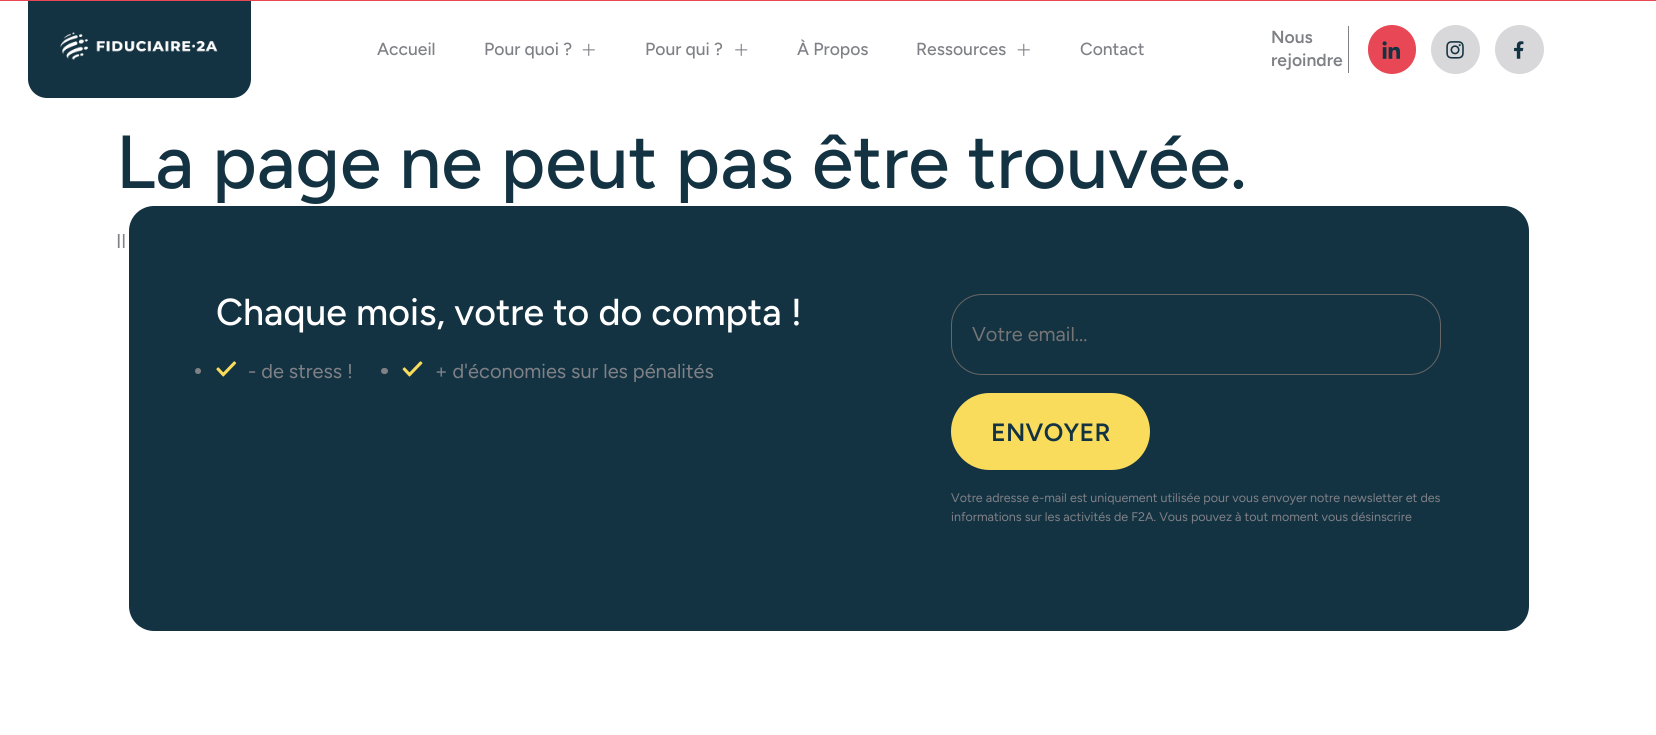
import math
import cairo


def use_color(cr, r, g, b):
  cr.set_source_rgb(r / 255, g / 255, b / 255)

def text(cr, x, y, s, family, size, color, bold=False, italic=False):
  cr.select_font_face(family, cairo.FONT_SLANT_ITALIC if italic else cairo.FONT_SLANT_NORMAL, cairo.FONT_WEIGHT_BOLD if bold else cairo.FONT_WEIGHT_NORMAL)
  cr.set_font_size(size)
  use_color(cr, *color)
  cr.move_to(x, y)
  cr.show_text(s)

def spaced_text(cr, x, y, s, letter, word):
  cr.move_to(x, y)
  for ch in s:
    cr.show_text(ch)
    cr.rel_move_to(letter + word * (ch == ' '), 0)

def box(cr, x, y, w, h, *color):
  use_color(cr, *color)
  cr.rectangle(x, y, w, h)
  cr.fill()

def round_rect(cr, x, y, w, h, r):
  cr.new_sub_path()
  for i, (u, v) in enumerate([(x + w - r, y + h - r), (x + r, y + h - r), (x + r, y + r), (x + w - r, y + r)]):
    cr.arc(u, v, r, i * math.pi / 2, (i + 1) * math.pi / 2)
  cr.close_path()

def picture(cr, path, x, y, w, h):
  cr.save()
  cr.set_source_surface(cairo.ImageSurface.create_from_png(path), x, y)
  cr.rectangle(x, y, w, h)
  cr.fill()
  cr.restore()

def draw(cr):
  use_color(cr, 255, 255, 255)
  cr.paint()
  box(cr, 0, 0, 1656, 1, 232, 72, 85)
  use_color(cr, 20, 51, 66)
  cr.new_path()
  cr.move_to(28, 1)
  cr.line_to(251, 1)
  cr.line_to(251, 79)
  cr.curve_to(251, 89.5, 242.5, 98, 232, 98)
  cr.line_to(47, 98)
  cr.curve_to(36.5, 98, 28, 89.5, 28, 79)
  cr.close_path()
  cr.fill()
  picture(cr, "img_01.png", 60, 32, 158, 28)
  picture(cr, "img_02.png", 582, 43, 13, 13)
  picture(cr, "img_03.png", 735, 43, 13, 13)
  picture(cr, "img_02.png", 1017, 43, 13, 13)
  box(cr, 1348, 26, 1, 47, 128, 129, 135)
  use_color(cr, 232, 72, 85)
  round_rect(cr, 1368, 25, 48, 49, 24)
  cr.fill()
  picture(cr, "img_04.png", 1382, 41, 18, 18)
  use_color(cr, 216, 216, 218)
  cr.arc(1455.5, 49.5, 24.5, 0, 2 * math.pi)
  cr.fill()
  picture(cr, "img_05.png", 1446, 41, 18, 18)
  cr.arc(1519.5, 49.5, 24.5, 0, 2 * math.pi)
  cr.fill()
  picture(cr, "img_06.png", 1514, 41, 10, 18)
  use_color(cr, 20, 51, 66)
  round_rect(cr, 129, 206, 1400, 425, 25)
  cr.fill()
  use_color(cr, 128, 129, 135)
  cr.arc(198, 371, 3, 0, 2 * math.pi)
  cr.fill()
  picture(cr, "img_07.png", 216, 361, 21, 16)
  round_rect(cr, 381, 368, 7, 6, 3)
  cr.fill()
  picture(cr, "img_08.png", 402, 361, 21, 16)
  round_rect(cr, 951.5, 294.5, 489, 80, 30.5)
  use_color(cr, 102, 102, 102)
  cr.set_line_width(1)
  cr.stroke()
  use_color(cr, 249, 220, 92)
  round_rect(cr, 951, 393, 199, 77, 38.5)
  cr.fill()
  text(cr, 377, 55, "Accueil", "Figtree Medium", 17.5, (128, 129, 135))
  text(cr, 484, 55, "Pour quoi ?", "Figtree Medium", 17.5, (128, 129, 135))
  text(cr, 645, 55, "Pour qui ?", "Figtree Medium", 17.5, (128, 129, 135))
  text(cr, 797, 55, "À Propos", "Figtree Medium", 17.5, (128, 129, 135))
  text(cr, 916, 55, "Ressources", "Figtree Medium", 17.5, (128, 129, 135))
  text(cr, 1080, 55, "Contact", "Figtree Medium", 17.5, (128, 129, 135))
  text(cr, 1271, 43, "Nous", "Figtree SemiBold", 17.5, (128, 129, 135))
  text(cr, 1271, 66, "rejoindre", "Figtree SemiBold", 17.5, (128, 129, 135))
  text(cr, 116, 188, "La page ne peut pas être trouvée.", "Figtree Medium", 75, (20, 51, 66))
  text(cr, 116, 248, "Il", "Figtree", 20, (128, 129, 135))
  text(cr, 216, 325, "Chaque mois, votre to do compta !", "Figtree Medium", 37.5, (255, 255, 255))
  text(cr, 248, 378, "- de stress !", "Figtree", 20, (128, 129, 135))
  text(cr, 435, 378, "+ d'économies sur les pénalités", "Figtree", 20, (128, 129, 135))
  text(cr, 972, 341, "Votre email...", "Figtree", 20, (117, 117, 117))
  cr.select_font_face("Figtree SemiBold")
  cr.set_font_size(25)
  use_color(cr, 20, 51, 66)
  spaced_text(cr, 991, 441, "ENVOYER", 0.25, 0)
  text(cr, 951, 502, "Votre adresse e-mail est uniquement utilisée pour vous envoyer notre newsletter et des", "Figtree", 12.5, (128, 129, 135))
  text(cr, 951, 521, "informations sur les activités de F2A. Vous pouvez à tout moment vous désinscrire", "Figtree", 12.5, (128, 129, 135))


surface = cairo.ImageSurface(cairo.FORMAT_RGB24, 1656, 735)
cr = cairo.Context(surface)
options = cairo.FontOptions()
options.set_hint_metrics(cairo.HINT_METRICS_OFF)
options.set_hint_style(cairo.HINT_STYLE_NONE)
cr.set_font_options(options)
cr.set_miter_limit(4)
draw(cr)
surface.write_to_png("out.png")
